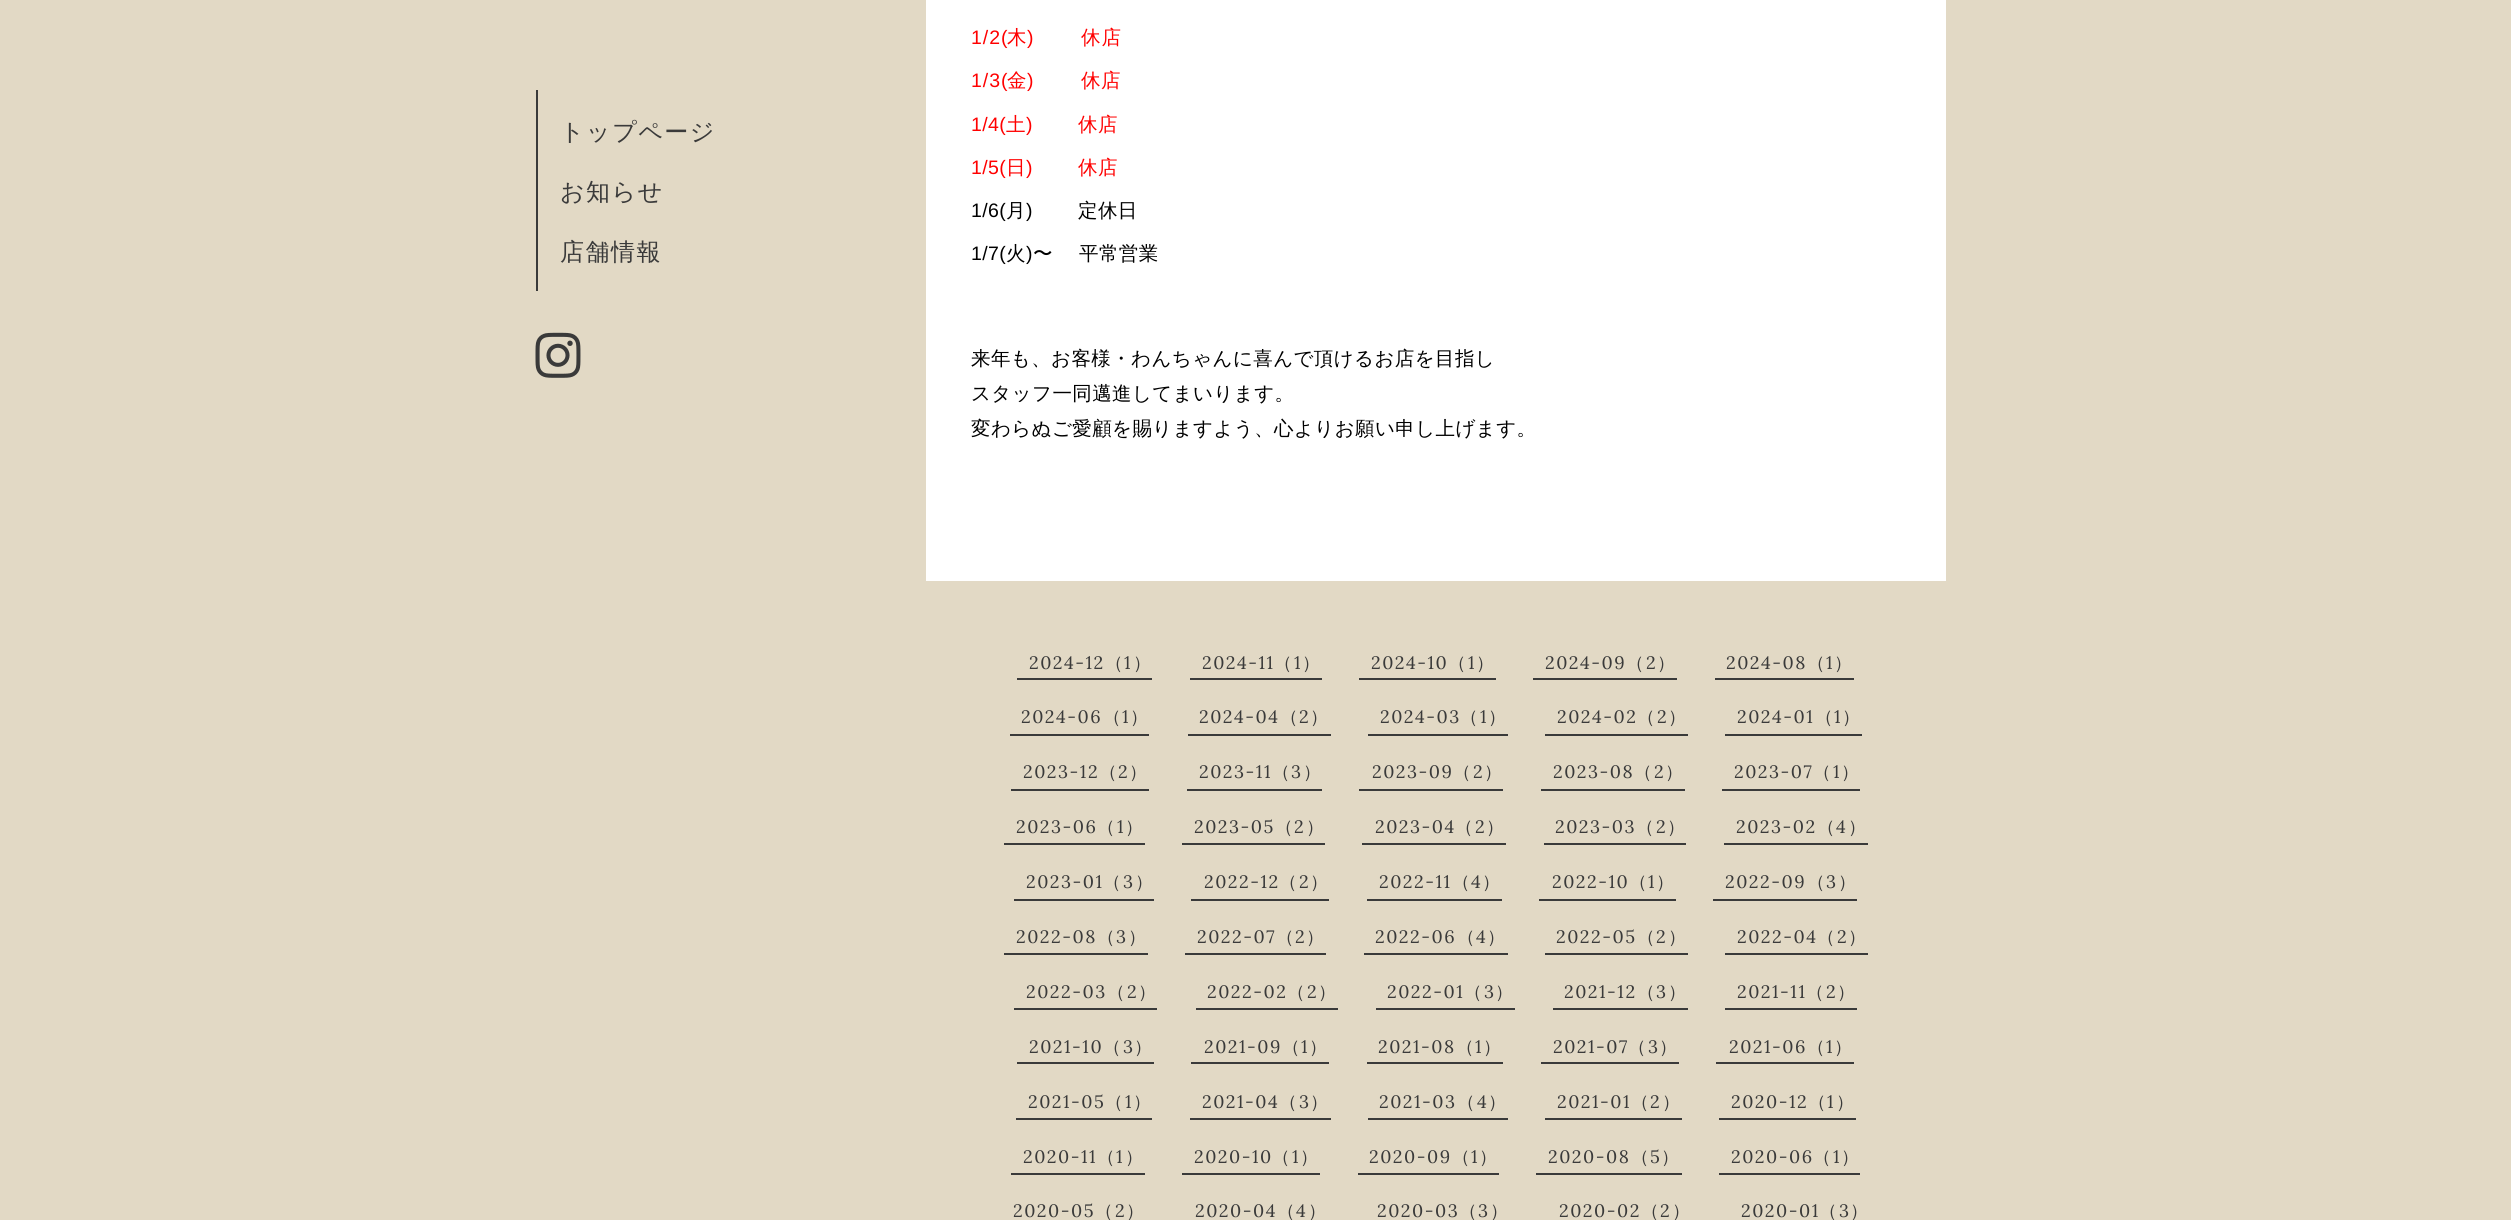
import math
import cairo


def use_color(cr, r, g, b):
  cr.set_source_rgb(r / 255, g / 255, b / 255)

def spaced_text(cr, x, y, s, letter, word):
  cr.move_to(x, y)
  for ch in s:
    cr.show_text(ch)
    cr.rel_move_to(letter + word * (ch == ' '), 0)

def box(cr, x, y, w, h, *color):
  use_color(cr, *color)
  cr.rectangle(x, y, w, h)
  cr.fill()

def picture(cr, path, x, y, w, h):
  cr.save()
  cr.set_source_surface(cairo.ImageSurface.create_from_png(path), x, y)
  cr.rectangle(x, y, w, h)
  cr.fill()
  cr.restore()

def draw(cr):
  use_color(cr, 226, 217, 197)
  cr.paint()
  box(cr, 536, 90, 2, 201, 58, 58, 58)
  picture(cr, "img_01.png", 535, 332, 46, 46)
  box(cr, 926, 0, 1020, 581, 255, 255, 255)
  box(cr, 1017, 678, 135, 2, 58, 58, 58)
  box(cr, 1190, 678, 132, 2, 58, 58, 58)
  box(cr, 1359, 678, 137, 2, 58, 58, 58)
  box(cr, 1533, 678, 144, 2, 58, 58, 58)
  box(cr, 1715, 678, 139, 2, 58, 58, 58)
  box(cr, 1010, 734, 139, 2, 58, 58, 58)
  box(cr, 1188, 734, 143, 2, 58, 58, 58)
  box(cr, 1368, 734, 140, 2, 58, 58, 58)
  box(cr, 1545, 734, 143, 2, 58, 58, 58)
  box(cr, 1725, 734, 137, 2, 58, 58, 58)
  box(cr, 1011, 789, 138, 2, 58, 58, 58)
  box(cr, 1187, 789, 135, 2, 58, 58, 58)
  box(cr, 1359, 789, 144, 2, 58, 58, 58)
  box(cr, 1541, 789, 144, 2, 58, 58, 58)
  box(cr, 1722, 789, 138, 2, 58, 58, 58)
  box(cr, 1004, 843, 141, 2, 58, 58, 58)
  box(cr, 1182, 843, 143, 2, 58, 58, 58)
  box(cr, 1362, 843, 144, 2, 58, 58, 58)
  box(cr, 1544, 843, 142, 2, 58, 58, 58)
  box(cr, 1724, 843, 144, 2, 58, 58, 58)
  box(cr, 1014, 899, 140, 2, 58, 58, 58)
  box(cr, 1191, 899, 138, 2, 58, 58, 58)
  box(cr, 1367, 899, 135, 2, 58, 58, 58)
  box(cr, 1539, 899, 137, 2, 58, 58, 58)
  box(cr, 1713, 899, 144, 2, 58, 58, 58)
  box(cr, 1004, 953, 144, 2, 58, 58, 58)
  box(cr, 1185, 953, 141, 2, 58, 58, 58)
  box(cr, 1364, 953, 144, 2, 58, 58, 58)
  box(cr, 1545, 953, 143, 2, 58, 58, 58)
  box(cr, 1725, 953, 143, 2, 58, 58, 58)
  box(cr, 1014, 1008, 143, 2, 58, 58, 58)
  box(cr, 1196, 1008, 142, 2, 58, 58, 58)
  box(cr, 1376, 1008, 139, 2, 58, 58, 58)
  box(cr, 1553, 1008, 135, 2, 58, 58, 58)
  box(cr, 1725, 1008, 132, 2, 58, 58, 58)
  box(cr, 1017, 1062, 137, 2, 58, 58, 58)
  box(cr, 1191, 1062, 138, 2, 58, 58, 58)
  box(cr, 1367, 1062, 136, 2, 58, 58, 58)
  box(cr, 1541, 1062, 138, 2, 58, 58, 58)
  box(cr, 1716, 1062, 138, 2, 58, 58, 58)
  box(cr, 1016, 1118, 136, 2, 58, 58, 58)
  box(cr, 1190, 1118, 141, 2, 58, 58, 58)
  box(cr, 1368, 1118, 140, 2, 58, 58, 58)
  box(cr, 1545, 1118, 137, 2, 58, 58, 58)
  box(cr, 1719, 1118, 137, 2, 58, 58, 58)
  box(cr, 1011, 1173, 134, 2, 58, 58, 58)
  box(cr, 1182, 1173, 138, 2, 58, 58, 58)
  box(cr, 1358, 1173, 141, 2, 58, 58, 58)
  box(cr, 1536, 1173, 146, 2, 58, 58, 58)
  box(cr, 1719, 1173, 141, 2, 58, 58, 58)
  cr.select_font_face("WenQuanYi Zen Hei Medium")
  cr.set_font_size(24)
  spaced_text(cr, 560, 140, "トップページ", 1.5, 0)
  spaced_text(cr, 560, 200, "お知らせ", 1.5, 0)
  spaced_text(cr, 560, 260, "店舗情報", 1.5, 0)
  cr.select_font_face("Liberation Sans")
  cr.set_font_size(19.5)
  use_color(cr, 255, 0, 0)
  spaced_text(cr, 971, 44, "1/2(", 1, 0)
  cr.select_font_face("WenQuanYi Zen Hei Medium")
  spaced_text(cr, 1007, 44, "木", 1, 0)
  cr.select_font_face("Liberation Sans")
  spaced_text(cr, 1027, 44, ")", 1, 0)
  cr.select_font_face("WenQuanYi Zen Hei Medium")
  spaced_text(cr, 1081, 44, "休店", 1, 0)
  cr.select_font_face("Liberation Sans")
  spaced_text(cr, 971, 87, "1/3(", 1, 0)
  cr.select_font_face("WenQuanYi Zen Hei Medium")
  spaced_text(cr, 1007, 87, "金", 1, 0)
  cr.select_font_face("Liberation Sans")
  spaced_text(cr, 1027, 87, ")", 1, 0)
  cr.select_font_face("WenQuanYi Zen Hei Medium")
  spaced_text(cr, 1081, 87, "休店", 0.4, 0)
  cr.select_font_face("Liberation Sans")
  spaced_text(cr, 971, 131, "1/4(", 0.4, 0)
  cr.select_font_face("WenQuanYi Zen Hei Medium")
  spaced_text(cr, 1006, 131, "土", 0.4, 0)
  cr.select_font_face("Liberation Sans")
  spaced_text(cr, 1026, 131, ")", 0.4, 0)
  cr.select_font_face("WenQuanYi Zen Hei Medium")
  spaced_text(cr, 1078, 131, "休店", 0.4, 0)
  cr.select_font_face("Liberation Sans")
  spaced_text(cr, 971, 174, "1/5(", 0.4, 0)
  cr.select_font_face("WenQuanYi Zen Hei Medium")
  spaced_text(cr, 1006, 174, "日", 0.4, 0)
  cr.select_font_face("Liberation Sans")
  spaced_text(cr, 1026, 174, ")", 0.4, 0)
  cr.select_font_face("WenQuanYi Zen Hei Medium")
  spaced_text(cr, 1078, 174, "休店", 0.4, 0)
  cr.select_font_face("Liberation Sans")
  use_color(cr, 0, 0, 0)
  spaced_text(cr, 971, 217, "1/6(", 0.4, 0)
  cr.select_font_face("WenQuanYi Zen Hei Medium")
  spaced_text(cr, 1006, 217, "月", 0.4, 0)
  cr.select_font_face("Liberation Sans")
  spaced_text(cr, 1026, 217, ")", 0.4, 0)
  cr.select_font_face("WenQuanYi Zen Hei Medium")
  spaced_text(cr, 1078, 217, "定休日", 0.4, 0)
  cr.select_font_face("Liberation Sans")
  spaced_text(cr, 971, 260, "1/7(", 0.4, 0)
  cr.select_font_face("WenQuanYi Zen Hei Medium")
  spaced_text(cr, 1006, 260, "火", 0.4, 0)
  cr.select_font_face("Liberation Sans")
  spaced_text(cr, 1026, 260, ")", 0.4, 0)
  cr.select_font_face("WenQuanYi Zen Hei Medium")
  spaced_text(cr, 1033, 260, "〜　 平常営業", 0.4, 0)
  spaced_text(cr, 971, 365, "来年も、お客様・わんちゃんに喜んで頂けるお店を目指し", 0.4, 0)
  spaced_text(cr, 971, 400, "スタッフ一同邁進してまいります。", 0.4, 0)
  spaced_text(cr, 971, 435, "変わらぬご愛顧を賜りますよう、心よりお願い申し上げます。", 0.4, 0)
  cr.select_font_face("Lora")
  cr.set_font_size(18)
  use_color(cr, 58, 58, 58)
  spaced_text(cr, 1029, 669, "2024-12", 1.5, 0)
  cr.select_font_face("WenQuanYi Zen Hei Medium")
  spaced_text(cr, 1105, 669, "（", 1.5, 0)
  cr.select_font_face("Lora")
  spaced_text(cr, 1124, 669, "1", 1.5, 0)
  cr.select_font_face("WenQuanYi Zen Hei Medium")
  spaced_text(cr, 1133, 669, "）", 1.5, 0)
  cr.select_font_face("Lora")
  spaced_text(cr, 1202, 669, "2024-11", 1.5, 0)
  cr.select_font_face("WenQuanYi Zen Hei Medium")
  spaced_text(cr, 1274, 669, "（", 1.5, 0)
  cr.select_font_face("Lora")
  spaced_text(cr, 1294, 669, "1", 1.5, 0)
  cr.select_font_face("WenQuanYi Zen Hei Medium")
  spaced_text(cr, 1302, 669, "）", 1.5, 0)
  cr.select_font_face("Lora")
  spaced_text(cr, 1371, 669, "2024-10", 1.5, 0)
  cr.select_font_face("WenQuanYi Zen Hei Medium")
  spaced_text(cr, 1448, 669, "（", 1.5, 0)
  cr.select_font_face("Lora")
  spaced_text(cr, 1468, 669, "1", 1.5, 0)
  cr.select_font_face("WenQuanYi Zen Hei Medium")
  spaced_text(cr, 1476, 669, "）", 1.5, 0)
  cr.select_font_face("Lora")
  spaced_text(cr, 1545, 669, "2024-09", 1.5, 0)
  cr.select_font_face("WenQuanYi Zen Hei Medium")
  spaced_text(cr, 1626, 669, "（", 1.5, 0)
  cr.select_font_face("Lora")
  spaced_text(cr, 1646, 669, "2", 1.5, 0)
  cr.select_font_face("WenQuanYi Zen Hei Medium")
  spaced_text(cr, 1657, 669, "）", 1.5, 0)
  cr.select_font_face("Lora")
  spaced_text(cr, 1726, 669, "2024-08", 1.5, 0)
  cr.select_font_face("WenQuanYi Zen Hei Medium")
  spaced_text(cr, 1807, 669, "（", 1.5, 0)
  cr.select_font_face("Lora")
  spaced_text(cr, 1826, 669, "1", 1.5, 0)
  cr.select_font_face("WenQuanYi Zen Hei Medium")
  spaced_text(cr, 1834, 669, "）", 1.5, 0)
  cr.select_font_face("Lora")
  spaced_text(cr, 1021, 723, "2024-06", 1.5, 0)
  cr.select_font_face("WenQuanYi Zen Hei Medium")
  spaced_text(cr, 1103, 723, "（", 1.5, 0)
  cr.select_font_face("Lora")
  spaced_text(cr, 1122, 723, "1", 1.5, 0)
  cr.select_font_face("WenQuanYi Zen Hei Medium")
  spaced_text(cr, 1130, 723, "）", 1.5, 0)
  cr.select_font_face("Lora")
  spaced_text(cr, 1199, 723, "2024-04", 1.5, 0)
  cr.select_font_face("WenQuanYi Zen Hei Medium")
  spaced_text(cr, 1280, 723, "（", 1.5, 0)
  cr.select_font_face("Lora")
  spaced_text(cr, 1299, 723, "2", 1.5, 0)
  cr.select_font_face("WenQuanYi Zen Hei Medium")
  spaced_text(cr, 1310, 723, "）", 1.5, 0)
  cr.select_font_face("Lora")
  spaced_text(cr, 1380, 723, "2024-03", 1.5, 0)
  cr.select_font_face("WenQuanYi Zen Hei Medium")
  spaced_text(cr, 1460, 723, "（", 1.5, 0)
  cr.select_font_face("Lora")
  spaced_text(cr, 1480, 723, "1", 1.5, 0)
  cr.select_font_face("WenQuanYi Zen Hei Medium")
  spaced_text(cr, 1488, 723, "）", 1.5, 0)
  cr.select_font_face("Lora")
  spaced_text(cr, 1557, 723, "2024-02", 1.5, 0)
  cr.select_font_face("WenQuanYi Zen Hei Medium")
  spaced_text(cr, 1637, 723, "（", 1.5, 0)
  cr.select_font_face("Lora")
  spaced_text(cr, 1657, 723, "2", 1.5, 0)
  cr.select_font_face("WenQuanYi Zen Hei Medium")
  spaced_text(cr, 1668, 723, "）", 1.5, 0)
  cr.select_font_face("Lora")
  spaced_text(cr, 1737, 723, "2024-01", 1.5, 0)
  cr.select_font_face("WenQuanYi Zen Hei Medium")
  spaced_text(cr, 1815, 723, "（", 1.5, 0)
  cr.select_font_face("Lora")
  spaced_text(cr, 1834, 723, "1", 1.5, 0)
  cr.select_font_face("WenQuanYi Zen Hei Medium")
  spaced_text(cr, 1842, 723, "）", 1.5, 0)
  cr.select_font_face("Lora")
  spaced_text(cr, 1023, 778, "2023-12", 1.5, 0)
  cr.select_font_face("WenQuanYi Zen Hei Medium")
  spaced_text(cr, 1099, 778, "（", 1.5, 0)
  cr.select_font_face("Lora")
  spaced_text(cr, 1118, 778, "2", 1.5, 0)
  cr.select_font_face("WenQuanYi Zen Hei Medium")
  spaced_text(cr, 1129, 778, "）", 1.5, 0)
  cr.select_font_face("Lora")
  spaced_text(cr, 1199, 778, "2023-11", 1.5, 0)
  cr.select_font_face("WenQuanYi Zen Hei Medium")
  spaced_text(cr, 1272, 778, "（", 1.5, 0)
  cr.select_font_face("Lora")
  spaced_text(cr, 1291, 778, "3", 1.5, 0)
  cr.select_font_face("WenQuanYi Zen Hei Medium")
  spaced_text(cr, 1303, 778, "）", 1.5, 0)
  cr.select_font_face("Lora")
  spaced_text(cr, 1372, 778, "2023-09", 1.5, 0)
  cr.select_font_face("WenQuanYi Zen Hei Medium")
  spaced_text(cr, 1453, 778, "（", 1.5, 0)
  cr.select_font_face("Lora")
  spaced_text(cr, 1473, 778, "2", 1.5, 0)
  cr.select_font_face("WenQuanYi Zen Hei Medium")
  spaced_text(cr, 1484, 778, "）", 1.5, 0)
  cr.select_font_face("Lora")
  spaced_text(cr, 1553, 778, "2023-08", 1.5, 0)
  cr.select_font_face("WenQuanYi Zen Hei Medium")
  spaced_text(cr, 1634, 778, "（", 1.5, 0)
  cr.select_font_face("Lora")
  spaced_text(cr, 1654, 778, "2", 1.5, 0)
  cr.select_font_face("WenQuanYi Zen Hei Medium")
  spaced_text(cr, 1665, 778, "）", 1.5, 0)
  cr.select_font_face("Lora")
  spaced_text(cr, 1734, 778, "2023-07", 1.5, 0)
  cr.select_font_face("WenQuanYi Zen Hei Medium")
  spaced_text(cr, 1813, 778, "（", 1.5, 0)
  cr.select_font_face("Lora")
  spaced_text(cr, 1833, 778, "1", 1.5, 0)
  cr.select_font_face("WenQuanYi Zen Hei Medium")
  spaced_text(cr, 1841, 778, "）", 1.5, 0)
  cr.select_font_face("Lora")
  spaced_text(cr, 1016, 833, "2023-06", 1.5, 0)
  cr.select_font_face("WenQuanYi Zen Hei Medium")
  spaced_text(cr, 1097, 833, "（", 1.5, 0)
  cr.select_font_face("Lora")
  spaced_text(cr, 1117, 833, "1", 1.5, 0)
  cr.select_font_face("WenQuanYi Zen Hei Medium")
  spaced_text(cr, 1125, 833, "）", 1.5, 0)
  cr.select_font_face("Lora")
  spaced_text(cr, 1194, 833, "2023-05", 1.5, 0)
  cr.select_font_face("WenQuanYi Zen Hei Medium")
  spaced_text(cr, 1275, 833, "（", 1.5, 0)
  cr.select_font_face("Lora")
  spaced_text(cr, 1294, 833, "2", 1.5, 0)
  cr.select_font_face("WenQuanYi Zen Hei Medium")
  spaced_text(cr, 1306, 833, "）", 1.5, 0)
  cr.select_font_face("Lora")
  spaced_text(cr, 1375, 833, "2023-04", 1.5, 0)
  cr.select_font_face("WenQuanYi Zen Hei Medium")
  spaced_text(cr, 1455, 833, "（", 1.5, 0)
  cr.select_font_face("Lora")
  spaced_text(cr, 1475, 833, "2", 1.5, 0)
  cr.select_font_face("WenQuanYi Zen Hei Medium")
  spaced_text(cr, 1486, 833, "）", 1.5, 0)
  cr.select_font_face("Lora")
  spaced_text(cr, 1555, 833, "2023-03", 1.5, 0)
  cr.select_font_face("WenQuanYi Zen Hei Medium")
  spaced_text(cr, 1636, 833, "（", 1.5, 0)
  cr.select_font_face("Lora")
  spaced_text(cr, 1656, 833, "2", 1.5, 0)
  cr.select_font_face("WenQuanYi Zen Hei Medium")
  spaced_text(cr, 1667, 833, "）", 1.5, 0)
  cr.select_font_face("Lora")
  spaced_text(cr, 1736, 833, "2023-02", 1.5, 0)
  cr.select_font_face("WenQuanYi Zen Hei Medium")
  spaced_text(cr, 1817, 833, "（", 1.5, 0)
  cr.select_font_face("Lora")
  spaced_text(cr, 1836, 833, "4", 1.5, 0)
  cr.select_font_face("WenQuanYi Zen Hei Medium")
  spaced_text(cr, 1848, 833, "）", 1.5, 0)
  cr.select_font_face("Lora")
  spaced_text(cr, 1026, 888, "2023-01", 1.5, 0)
  cr.select_font_face("WenQuanYi Zen Hei Medium")
  spaced_text(cr, 1103, 888, "（", 1.5, 0)
  cr.select_font_face("Lora")
  spaced_text(cr, 1123, 888, "3", 1.5, 0)
  cr.select_font_face("WenQuanYi Zen Hei Medium")
  spaced_text(cr, 1135, 888, "）", 1.5, 0)
  cr.select_font_face("Lora")
  spaced_text(cr, 1204, 888, "2022-12", 1.5, 0)
  cr.select_font_face("WenQuanYi Zen Hei Medium")
  spaced_text(cr, 1279, 888, "（", 1.5, 0)
  cr.select_font_face("Lora")
  spaced_text(cr, 1299, 888, "2", 1.5, 0)
  cr.select_font_face("WenQuanYi Zen Hei Medium")
  spaced_text(cr, 1310, 888, "）", 1.5, 0)
  cr.select_font_face("Lora")
  spaced_text(cr, 1379, 888, "2022-11", 1.5, 0)
  cr.select_font_face("WenQuanYi Zen Hei Medium")
  spaced_text(cr, 1452, 888, "（", 1.5, 0)
  cr.select_font_face("Lora")
  spaced_text(cr, 1471, 888, "4", 1.5, 0)
  cr.select_font_face("WenQuanYi Zen Hei Medium")
  spaced_text(cr, 1482, 888, "）", 1.5, 0)
  cr.select_font_face("Lora")
  spaced_text(cr, 1552, 888, "2022-10", 1.5, 0)
  cr.select_font_face("WenQuanYi Zen Hei Medium")
  spaced_text(cr, 1629, 888, "（", 1.5, 0)
  cr.select_font_face("Lora")
  spaced_text(cr, 1648, 888, "1", 1.5, 0)
  cr.select_font_face("WenQuanYi Zen Hei Medium")
  spaced_text(cr, 1656, 888, "）", 1.5, 0)
  cr.select_font_face("Lora")
  spaced_text(cr, 1725, 888, "2022-09", 1.5, 0)
  cr.select_font_face("WenQuanYi Zen Hei Medium")
  spaced_text(cr, 1807, 888, "（", 1.5, 0)
  cr.select_font_face("Lora")
  spaced_text(cr, 1826, 888, "3", 1.5, 0)
  cr.select_font_face("WenQuanYi Zen Hei Medium")
  spaced_text(cr, 1838, 888, "）", 1.5, 0)
  cr.select_font_face("Lora")
  spaced_text(cr, 1016, 943, "2022-08", 1.5, 0)
  cr.select_font_face("WenQuanYi Zen Hei Medium")
  spaced_text(cr, 1097, 943, "（", 1.5, 0)
  cr.select_font_face("Lora")
  spaced_text(cr, 1116, 943, "3", 1.5, 0)
  cr.select_font_face("WenQuanYi Zen Hei Medium")
  spaced_text(cr, 1128, 943, "）", 1.5, 0)
  cr.select_font_face("Lora")
  spaced_text(cr, 1197, 943, "2022-07", 1.5, 0)
  cr.select_font_face("WenQuanYi Zen Hei Medium")
  spaced_text(cr, 1276, 943, "（", 1.5, 0)
  cr.select_font_face("Lora")
  spaced_text(cr, 1295, 943, "2", 1.5, 0)
  cr.select_font_face("WenQuanYi Zen Hei Medium")
  spaced_text(cr, 1306, 943, "）", 1.5, 0)
  cr.select_font_face("Lora")
  spaced_text(cr, 1375, 943, "2022-06", 1.5, 0)
  cr.select_font_face("WenQuanYi Zen Hei Medium")
  spaced_text(cr, 1457, 943, "（", 1.5, 0)
  cr.select_font_face("Lora")
  spaced_text(cr, 1476, 943, "4", 1.5, 0)
  cr.select_font_face("WenQuanYi Zen Hei Medium")
  spaced_text(cr, 1487, 943, "）", 1.5, 0)
  cr.select_font_face("Lora")
  spaced_text(cr, 1556, 943, "2022-05", 1.5, 0)
  cr.select_font_face("WenQuanYi Zen Hei Medium")
  spaced_text(cr, 1637, 943, "（", 1.5, 0)
  cr.select_font_face("Lora")
  spaced_text(cr, 1656, 943, "2", 1.5, 0)
  cr.select_font_face("WenQuanYi Zen Hei Medium")
  spaced_text(cr, 1668, 943, "）", 1.5, 0)
  cr.select_font_face("Lora")
  spaced_text(cr, 1737, 943, "2022-04", 1.5, 0)
  cr.select_font_face("WenQuanYi Zen Hei Medium")
  spaced_text(cr, 1817, 943, "（", 1.5, 0)
  cr.select_font_face("Lora")
  spaced_text(cr, 1837, 943, "2", 1.5, 0)
  cr.select_font_face("WenQuanYi Zen Hei Medium")
  spaced_text(cr, 1848, 943, "）", 1.5, 0)
  cr.select_font_face("Lora")
  spaced_text(cr, 1026, 998, "2022-03", 1.5, 0)
  cr.select_font_face("WenQuanYi Zen Hei Medium")
  spaced_text(cr, 1107, 998, "（", 1.5, 0)
  cr.select_font_face("Lora")
  spaced_text(cr, 1127, 998, "2", 1.5, 0)
  cr.select_font_face("WenQuanYi Zen Hei Medium")
  spaced_text(cr, 1138, 998, "）", 1.5, 0)
  cr.select_font_face("Lora")
  spaced_text(cr, 1207, 998, "2022-02", 1.5, 0)
  cr.select_font_face("WenQuanYi Zen Hei Medium")
  spaced_text(cr, 1287, 998, "（", 1.5, 0)
  cr.select_font_face("Lora")
  spaced_text(cr, 1307, 998, "2", 1.5, 0)
  cr.select_font_face("WenQuanYi Zen Hei Medium")
  spaced_text(cr, 1318, 998, "）", 1.5, 0)
  cr.select_font_face("Lora")
  spaced_text(cr, 1387, 998, "2022-01", 1.5, 0)
  cr.select_font_face("WenQuanYi Zen Hei Medium")
  spaced_text(cr, 1464, 998, "（", 1.5, 0)
  cr.select_font_face("Lora")
  spaced_text(cr, 1484, 998, "3", 1.5, 0)
  cr.select_font_face("WenQuanYi Zen Hei Medium")
  spaced_text(cr, 1495, 998, "）", 1.5, 0)
  cr.select_font_face("Lora")
  spaced_text(cr, 1564, 998, "2021-12", 1.5, 0)
  cr.select_font_face("WenQuanYi Zen Hei Medium")
  spaced_text(cr, 1637, 998, "（", 1.5, 0)
  cr.select_font_face("Lora")
  spaced_text(cr, 1656, 998, "3", 1.5, 0)
  cr.select_font_face("WenQuanYi Zen Hei Medium")
  spaced_text(cr, 1668, 998, "）", 1.5, 0)
  cr.select_font_face("Lora")
  spaced_text(cr, 1737, 998, "2021-11", 1.5, 0)
  cr.select_font_face("WenQuanYi Zen Hei Medium")
  spaced_text(cr, 1806, 998, "（", 1.5, 0)
  cr.select_font_face("Lora")
  spaced_text(cr, 1826, 998, "2", 1.5, 0)
  cr.select_font_face("WenQuanYi Zen Hei Medium")
  spaced_text(cr, 1837, 998, "）", 1.5, 0)
  cr.select_font_face("Lora")
  spaced_text(cr, 1029, 1053, "2021-10", 1.5, 0)
  cr.select_font_face("WenQuanYi Zen Hei Medium")
  spaced_text(cr, 1103, 1053, "（", 1.5, 0)
  cr.select_font_face("Lora")
  spaced_text(cr, 1123, 1053, "3", 1.5, 0)
  cr.select_font_face("WenQuanYi Zen Hei Medium")
  spaced_text(cr, 1134, 1053, "）", 1.5, 0)
  cr.select_font_face("Lora")
  spaced_text(cr, 1204, 1053, "2021-09", 1.5, 0)
  cr.select_font_face("WenQuanYi Zen Hei Medium")
  spaced_text(cr, 1282, 1053, "（", 1.5, 0)
  cr.select_font_face("Lora")
  spaced_text(cr, 1301, 1053, "1", 1.5, 0)
  cr.select_font_face("WenQuanYi Zen Hei Medium")
  spaced_text(cr, 1309, 1053, "）", 1.5, 0)
  cr.select_font_face("Lora")
  spaced_text(cr, 1378, 1053, "2021-08", 1.5, 0)
  cr.select_font_face("WenQuanYi Zen Hei Medium")
  spaced_text(cr, 1456, 1053, "（", 1.5, 0)
  cr.select_font_face("Lora")
  spaced_text(cr, 1475, 1053, "1", 1.5, 0)
  cr.select_font_face("WenQuanYi Zen Hei Medium")
  spaced_text(cr, 1483, 1053, "）", 1.5, 0)
  cr.select_font_face("Lora")
  spaced_text(cr, 1553, 1053, "2021-07", 1.5, 0)
  cr.select_font_face("WenQuanYi Zen Hei Medium")
  spaced_text(cr, 1628, 1053, "（", 1.5, 0)
  cr.select_font_face("Lora")
  spaced_text(cr, 1648, 1053, "3", 1.5, 0)
  cr.select_font_face("WenQuanYi Zen Hei Medium")
  spaced_text(cr, 1659, 1053, "）", 1.5, 0)
  cr.select_font_face("Lora")
  spaced_text(cr, 1729, 1053, "2021-06", 1.5, 0)
  cr.select_font_face("WenQuanYi Zen Hei Medium")
  spaced_text(cr, 1807, 1053, "（", 1.5, 0)
  cr.select_font_face("Lora")
  spaced_text(cr, 1826, 1053, "1", 1.5, 0)
  cr.select_font_face("WenQuanYi Zen Hei Medium")
  spaced_text(cr, 1834, 1053, "）", 1.5, 0)
  cr.select_font_face("Lora")
  spaced_text(cr, 1028, 1108, "2021-05", 1.5, 0)
  cr.select_font_face("WenQuanYi Zen Hei Medium")
  spaced_text(cr, 1105, 1108, "（", 1.5, 0)
  cr.select_font_face("Lora")
  spaced_text(cr, 1125, 1108, "1", 1.5, 0)
  cr.select_font_face("WenQuanYi Zen Hei Medium")
  spaced_text(cr, 1133, 1108, "）", 1.5, 0)
  cr.select_font_face("Lora")
  spaced_text(cr, 1202, 1108, "2021-04", 1.5, 0)
  cr.select_font_face("WenQuanYi Zen Hei Medium")
  spaced_text(cr, 1279, 1108, "（", 1.5, 0)
  cr.select_font_face("Lora")
  spaced_text(cr, 1299, 1108, "3", 1.5, 0)
  cr.select_font_face("WenQuanYi Zen Hei Medium")
  spaced_text(cr, 1310, 1108, "）", 1.5, 0)
  cr.select_font_face("Lora")
  spaced_text(cr, 1379, 1108, "2021-03", 1.5, 0)
  cr.select_font_face("WenQuanYi Zen Hei Medium")
  spaced_text(cr, 1457, 1108, "（", 1.5, 0)
  cr.select_font_face("Lora")
  spaced_text(cr, 1477, 1108, "4", 1.5, 0)
  cr.select_font_face("WenQuanYi Zen Hei Medium")
  spaced_text(cr, 1488, 1108, "）", 1.5, 0)
  cr.select_font_face("Lora")
  spaced_text(cr, 1557, 1108, "2021-01", 1.5, 0)
  cr.select_font_face("WenQuanYi Zen Hei Medium")
  spaced_text(cr, 1631, 1108, "（", 1.5, 0)
  cr.select_font_face("Lora")
  spaced_text(cr, 1650, 1108, "2", 1.5, 0)
  cr.select_font_face("WenQuanYi Zen Hei Medium")
  spaced_text(cr, 1662, 1108, "）", 1.5, 0)
  cr.select_font_face("Lora")
  spaced_text(cr, 1731, 1108, "2020-12", 1.5, 0)
  cr.select_font_face("WenQuanYi Zen Hei Medium")
  spaced_text(cr, 1808, 1108, "（", 1.5, 0)
  cr.select_font_face("Lora")
  spaced_text(cr, 1827, 1108, "1", 1.5, 0)
  cr.select_font_face("WenQuanYi Zen Hei Medium")
  spaced_text(cr, 1836, 1108, "）", 1.5, 0)
  cr.select_font_face("Lora")
  spaced_text(cr, 1023, 1163, "2020-11", 1.5, 0)
  cr.select_font_face("WenQuanYi Zen Hei Medium")
  spaced_text(cr, 1097, 1163, "（", 1.5, 0)
  cr.select_font_face("Lora")
  spaced_text(cr, 1116, 1163, "1", 1.5, 0)
  cr.select_font_face("WenQuanYi Zen Hei Medium")
  spaced_text(cr, 1125, 1163, "）", 1.5, 0)
  cr.select_font_face("Lora")
  spaced_text(cr, 1194, 1163, "2020-10", 1.5, 0)
  cr.select_font_face("WenQuanYi Zen Hei Medium")
  spaced_text(cr, 1272, 1163, "（", 1.5, 0)
  cr.select_font_face("Lora")
  spaced_text(cr, 1292, 1163, "1", 1.5, 0)
  cr.select_font_face("WenQuanYi Zen Hei Medium")
  spaced_text(cr, 1300, 1163, "）", 1.5, 0)
  cr.select_font_face("Lora")
  spaced_text(cr, 1369, 1163, "2020-09", 1.5, 0)
  cr.select_font_face("WenQuanYi Zen Hei Medium")
  spaced_text(cr, 1452, 1163, "（", 1.5, 0)
  cr.select_font_face("Lora")
  spaced_text(cr, 1471, 1163, "1", 1.5, 0)
  cr.select_font_face("WenQuanYi Zen Hei Medium")
  spaced_text(cr, 1479, 1163, "）", 1.5, 0)
  cr.select_font_face("Lora")
  spaced_text(cr, 1548, 1163, "2020-08", 1.5, 0)
  cr.select_font_face("WenQuanYi Zen Hei Medium")
  spaced_text(cr, 1631, 1163, "（", 1.5, 0)
  cr.select_font_face("Lora")
  spaced_text(cr, 1650, 1163, "5", 1.5, 0)
  cr.select_font_face("WenQuanYi Zen Hei Medium")
  spaced_text(cr, 1661, 1163, "）", 1.5, 0)
  cr.select_font_face("Lora")
  spaced_text(cr, 1731, 1163, "2020-06", 1.5, 0)
  cr.select_font_face("WenQuanYi Zen Hei Medium")
  spaced_text(cr, 1813, 1163, "（", 1.5, 0)
  cr.select_font_face("Lora")
  spaced_text(cr, 1833, 1163, "1", 1.5, 0)
  cr.select_font_face("WenQuanYi Zen Hei Medium")
  spaced_text(cr, 1841, 1163, "）", 1.5, 0)
  cr.select_font_face("Lora")
  spaced_text(cr, 1013, 1217, "2020-05", 1.5, 0)
  cr.select_font_face("WenQuanYi Zen Hei Medium")
  spaced_text(cr, 1095, 1217, "（", 1.5, 0)
  cr.select_font_face("Lora")
  spaced_text(cr, 1115, 1217, "2", 1.5, 0)
  cr.select_font_face("WenQuanYi Zen Hei Medium")
  spaced_text(cr, 1126, 1217, "）", 1.5, 0)
  cr.select_font_face("Lora")
  spaced_text(cr, 1195, 1217, "2020-04", 1.5, 0)
  cr.select_font_face("WenQuanYi Zen Hei Medium")
  spaced_text(cr, 1277, 1217, "（", 1.5, 0)
  cr.select_font_face("Lora")
  spaced_text(cr, 1296, 1217, "4", 1.5, 0)
  cr.select_font_face("WenQuanYi Zen Hei Medium")
  spaced_text(cr, 1308, 1217, "）", 1.5, 0)
  cr.select_font_face("Lora")
  spaced_text(cr, 1377, 1217, "2020-03", 1.5, 0)
  cr.select_font_face("WenQuanYi Zen Hei Medium")
  spaced_text(cr, 1459, 1217, "（", 1.5, 0)
  cr.select_font_face("Lora")
  spaced_text(cr, 1478, 1217, "3", 1.5, 0)
  cr.select_font_face("WenQuanYi Zen Hei Medium")
  spaced_text(cr, 1490, 1217, "）", 1.5, 0)
  cr.select_font_face("Lora")
  spaced_text(cr, 1559, 1217, "2020-02", 1.5, 0)
  cr.select_font_face("WenQuanYi Zen Hei Medium")
  spaced_text(cr, 1641, 1217, "（", 1.5, 0)
  cr.select_font_face("Lora")
  spaced_text(cr, 1660, 1217, "2", 1.5, 0)
  cr.select_font_face("WenQuanYi Zen Hei Medium")
  spaced_text(cr, 1672, 1217, "）", 1.5, 0)
  cr.select_font_face("Lora")
  spaced_text(cr, 1741, 1217, "2020-01", 1.5, 0)
  cr.select_font_face("WenQuanYi Zen Hei Medium")
  spaced_text(cr, 1819, 1217, "（", 1.5, 0)
  cr.select_font_face("Lora")
  spaced_text(cr, 1839, 1217, "3", 1.5, 0)
  cr.select_font_face("WenQuanYi Zen Hei Medium")
  spaced_text(cr, 1850, 1217, "）", 1.5, 0)


surface = cairo.ImageSurface(cairo.FORMAT_RGB24, 2511, 1220)
cr = cairo.Context(surface)
options = cairo.FontOptions()
options.set_hint_metrics(cairo.HINT_METRICS_OFF)
options.set_hint_style(cairo.HINT_STYLE_NONE)
cr.set_font_options(options)
cr.set_miter_limit(4)
draw(cr)
surface.write_to_png("out.png")
